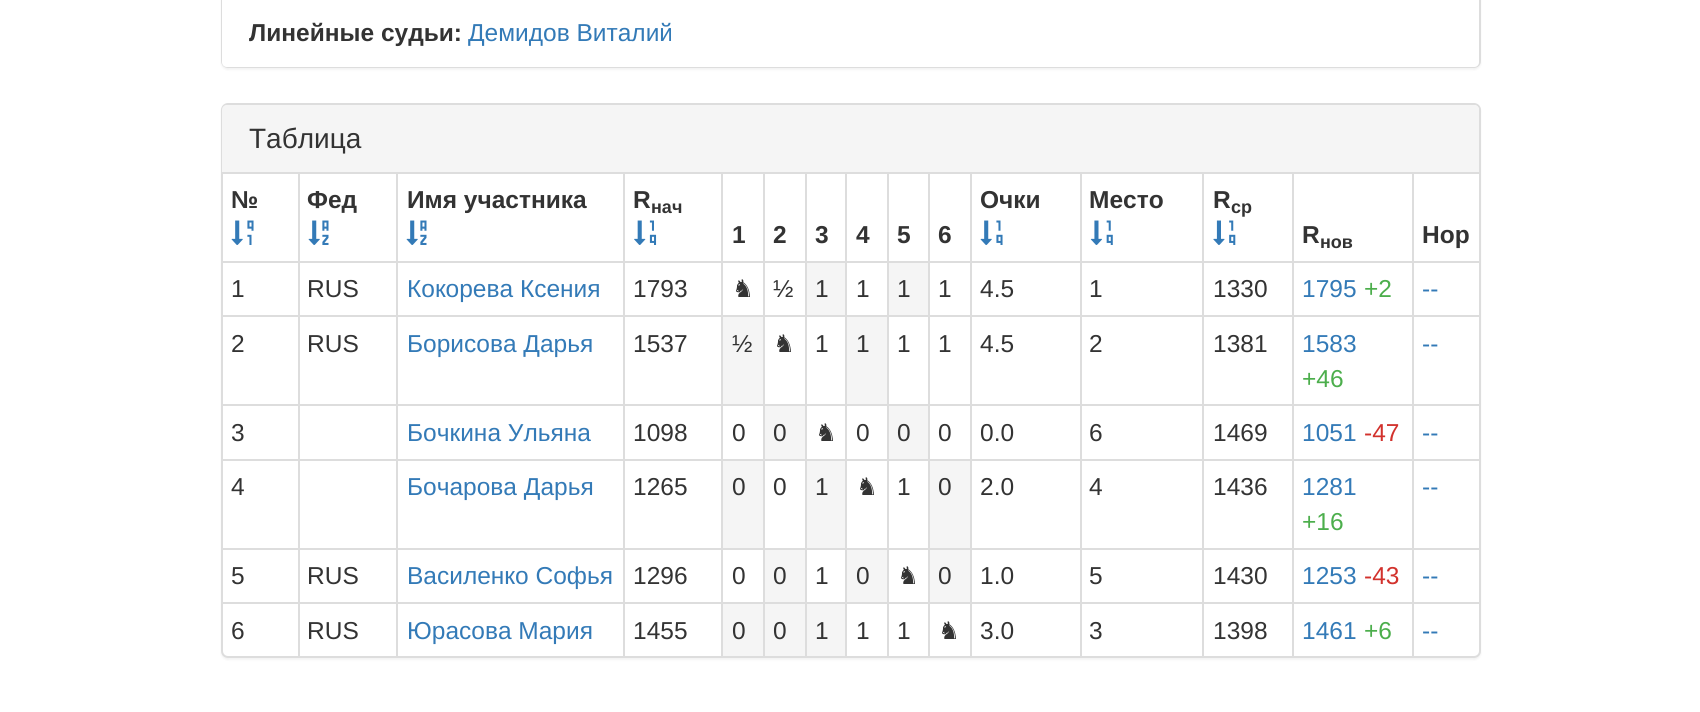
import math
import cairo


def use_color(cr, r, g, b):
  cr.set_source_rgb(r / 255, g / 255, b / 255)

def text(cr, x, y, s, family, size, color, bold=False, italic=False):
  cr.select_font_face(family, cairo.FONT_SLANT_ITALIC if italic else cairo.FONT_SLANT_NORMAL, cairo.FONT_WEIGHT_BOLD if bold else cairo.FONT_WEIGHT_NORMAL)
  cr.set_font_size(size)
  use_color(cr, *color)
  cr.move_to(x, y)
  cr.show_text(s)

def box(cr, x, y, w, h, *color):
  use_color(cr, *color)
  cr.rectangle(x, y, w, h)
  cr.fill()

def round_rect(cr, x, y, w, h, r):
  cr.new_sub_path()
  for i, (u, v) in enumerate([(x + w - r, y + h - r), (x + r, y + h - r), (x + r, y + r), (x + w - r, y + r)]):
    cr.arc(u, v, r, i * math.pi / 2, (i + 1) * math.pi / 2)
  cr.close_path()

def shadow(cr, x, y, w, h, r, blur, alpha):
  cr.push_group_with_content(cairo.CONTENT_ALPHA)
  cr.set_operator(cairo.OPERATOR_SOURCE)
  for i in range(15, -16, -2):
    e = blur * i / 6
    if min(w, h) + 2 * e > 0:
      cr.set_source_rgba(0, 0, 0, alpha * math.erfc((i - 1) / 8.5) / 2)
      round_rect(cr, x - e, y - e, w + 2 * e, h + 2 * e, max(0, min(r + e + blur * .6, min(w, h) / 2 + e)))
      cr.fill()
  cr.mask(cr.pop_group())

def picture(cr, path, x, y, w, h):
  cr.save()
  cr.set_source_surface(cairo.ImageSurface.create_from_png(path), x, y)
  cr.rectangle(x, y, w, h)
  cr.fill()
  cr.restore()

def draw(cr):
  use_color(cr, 255, 255, 255)
  cr.paint()
  use_color(cr, 0, 0, 0)
  shadow(cr, 221, -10, 1260, 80, 7, 1, 0.05)
  round_rect(cr, 222, -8, 1258, 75, 6)
  use_color(cr, 221, 221, 221)
  cr.stroke()
  use_color(cr, 255, 255, 255)
  cr.new_path()
  cr.move_to(222, -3)
  cr.line_to(1479, -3)
  cr.line_to(1479, 62)
  cr.curve_to(1479, 65, 1477, 67, 1474, 67)
  cr.line_to(227, 67)
  cr.curve_to(224, 67, 222, 65, 222, 62)
  cr.close_path()
  cr.fill()
  use_color(cr, 0, 0, 0)
  shadow(cr, 221, 105, 1260, 555, 7, 1, 0.05)
  use_color(cr, 255, 255, 255)
  round_rect(cr, 222, 104, 1258, 553, 6)
  cr.fill_preserve()
  use_color(cr, 221, 221, 221)
  cr.stroke()
  use_color(cr, 245, 245, 245)
  cr.new_path()
  cr.move_to(227, 105)
  cr.line_to(1474, 105)
  cr.curve_to(1477, 105, 1479, 107, 1479, 110)
  cr.line_to(1479, 173)
  cr.line_to(222, 173)
  cr.line_to(222, 110)
  cr.curve_to(222, 107, 224, 105, 227, 105)
  cr.close_path()
  cr.fill()
  box(cr, 222, 172, 1257, 2, 221, 221, 221)
  picture(cr, "img_01.png", 231, 220, 23, 25)
  box(cr, 1412, 261, 69, 2, 221, 221, 221)
  box(cr, 1412, 315, 69, 2, 221, 221, 221)
  box(cr, 1412, 404, 69, 2, 221, 221, 221)
  box(cr, 1412, 459, 69, 2, 221, 221, 221)
  box(cr, 1412, 548, 69, 2, 221, 221, 221)
  box(cr, 1412, 602, 69, 2, 221, 221, 221)
  box(cr, 1412, 602, 2, 54, 221, 221, 221)
  box(cr, 1292, 602, 122, 2, 221, 221, 221)
  box(cr, 1412, 548, 2, 56, 221, 221, 221)
  box(cr, 1292, 548, 122, 2, 221, 221, 221)
  box(cr, 1412, 459, 2, 91, 221, 221, 221)
  box(cr, 1292, 459, 122, 2, 221, 221, 221)
  box(cr, 1412, 404, 2, 56, 221, 221, 221)
  box(cr, 1292, 404, 122, 2, 221, 221, 221)
  box(cr, 1412, 315, 2, 91, 221, 221, 221)
  box(cr, 1292, 315, 122, 2, 221, 221, 221)
  box(cr, 1412, 261, 2, 56, 221, 221, 221)
  box(cr, 1292, 261, 122, 2, 221, 221, 221)
  box(cr, 1292, 602, 2, 54, 221, 221, 221)
  box(cr, 1202, 602, 91, 2, 221, 221, 221)
  box(cr, 1292, 548, 2, 56, 221, 221, 221)
  box(cr, 1202, 548, 91, 2, 221, 221, 221)
  box(cr, 1292, 459, 2, 91, 221, 221, 221)
  box(cr, 1202, 459, 91, 2, 221, 221, 221)
  box(cr, 1292, 404, 2, 56, 221, 221, 221)
  box(cr, 1202, 404, 91, 2, 221, 221, 221)
  box(cr, 1292, 315, 2, 91, 221, 221, 221)
  box(cr, 1202, 315, 91, 2, 221, 221, 221)
  box(cr, 1292, 261, 2, 56, 221, 221, 221)
  box(cr, 1202, 261, 91, 2, 221, 221, 221)
  box(cr, 1202, 602, 2, 54, 221, 221, 221)
  box(cr, 1080, 602, 124, 2, 221, 221, 221)
  box(cr, 1202, 548, 2, 56, 221, 221, 221)
  box(cr, 1080, 548, 124, 2, 221, 221, 221)
  box(cr, 1202, 459, 2, 91, 221, 221, 221)
  box(cr, 1080, 459, 124, 2, 221, 221, 221)
  box(cr, 1202, 404, 2, 56, 221, 221, 221)
  box(cr, 1080, 404, 124, 2, 221, 221, 221)
  box(cr, 1202, 315, 2, 91, 221, 221, 221)
  box(cr, 1080, 315, 124, 2, 221, 221, 221)
  box(cr, 1202, 261, 2, 56, 221, 221, 221)
  box(cr, 1080, 261, 124, 2, 221, 221, 221)
  box(cr, 1080, 602, 2, 54, 221, 221, 221)
  box(cr, 970, 602, 112, 2, 221, 221, 221)
  box(cr, 1080, 548, 2, 56, 221, 221, 221)
  box(cr, 970, 548, 112, 2, 221, 221, 221)
  box(cr, 1080, 459, 2, 91, 221, 221, 221)
  box(cr, 970, 459, 112, 2, 221, 221, 221)
  box(cr, 1080, 404, 2, 56, 221, 221, 221)
  box(cr, 970, 404, 112, 2, 221, 221, 221)
  box(cr, 1080, 315, 2, 91, 221, 221, 221)
  box(cr, 970, 315, 112, 2, 221, 221, 221)
  box(cr, 1080, 261, 2, 56, 221, 221, 221)
  box(cr, 970, 261, 112, 2, 221, 221, 221)
  box(cr, 970, 602, 2, 54, 221, 221, 221)
  box(cr, 928, 602, 43, 2, 221, 221, 221)
  box(cr, 970, 548, 2, 56, 221, 221, 221)
  box(cr, 928, 548, 43, 2, 221, 221, 221)
  box(cr, 970, 459, 2, 91, 221, 221, 221)
  box(cr, 928, 459, 43, 2, 221, 221, 221)
  box(cr, 970, 404, 2, 56, 221, 221, 221)
  box(cr, 928, 404, 43, 2, 221, 221, 221)
  box(cr, 970, 315, 2, 91, 221, 221, 221)
  box(cr, 928, 315, 43, 2, 221, 221, 221)
  box(cr, 970, 261, 2, 56, 221, 221, 221)
  box(cr, 928, 261, 43, 2, 221, 221, 221)
  box(cr, 928, 602, 2, 54, 221, 221, 221)
  box(cr, 887, 602, 42, 2, 221, 221, 221)
  box(cr, 928, 548, 2, 56, 221, 221, 221)
  box(cr, 887, 548, 42, 2, 221, 221, 221)
  box(cr, 928, 459, 2, 91, 221, 221, 221)
  box(cr, 887, 459, 42, 2, 221, 221, 221)
  box(cr, 928, 404, 2, 56, 221, 221, 221)
  box(cr, 887, 404, 42, 2, 221, 221, 221)
  box(cr, 928, 315, 2, 91, 221, 221, 221)
  box(cr, 887, 315, 42, 2, 221, 221, 221)
  box(cr, 928, 261, 2, 56, 221, 221, 221)
  box(cr, 887, 261, 42, 2, 221, 221, 221)
  box(cr, 887, 602, 2, 54, 221, 221, 221)
  box(cr, 845, 602, 44, 2, 221, 221, 221)
  box(cr, 887, 548, 2, 56, 221, 221, 221)
  box(cr, 845, 548, 44, 2, 221, 221, 221)
  box(cr, 887, 459, 2, 91, 221, 221, 221)
  box(cr, 845, 459, 44, 2, 221, 221, 221)
  box(cr, 887, 404, 2, 56, 221, 221, 221)
  box(cr, 845, 404, 44, 2, 221, 221, 221)
  box(cr, 887, 315, 2, 91, 221, 221, 221)
  box(cr, 845, 315, 44, 2, 221, 221, 221)
  box(cr, 887, 261, 2, 56, 221, 221, 221)
  box(cr, 845, 261, 44, 2, 221, 221, 221)
  box(cr, 845, 602, 2, 54, 221, 221, 221)
  box(cr, 805, 602, 42, 2, 221, 221, 221)
  box(cr, 845, 548, 2, 56, 221, 221, 221)
  box(cr, 805, 548, 42, 2, 221, 221, 221)
  box(cr, 845, 459, 2, 91, 221, 221, 221)
  box(cr, 805, 459, 42, 2, 221, 221, 221)
  box(cr, 845, 404, 2, 56, 221, 221, 221)
  box(cr, 805, 404, 42, 2, 221, 221, 221)
  box(cr, 845, 315, 2, 91, 221, 221, 221)
  box(cr, 805, 315, 42, 2, 221, 221, 221)
  box(cr, 845, 261, 2, 56, 221, 221, 221)
  box(cr, 805, 261, 42, 2, 221, 221, 221)
  box(cr, 805, 602, 2, 54, 221, 221, 221)
  box(cr, 763, 602, 44, 2, 221, 221, 221)
  box(cr, 805, 548, 2, 56, 221, 221, 221)
  box(cr, 763, 548, 44, 2, 221, 221, 221)
  box(cr, 805, 459, 2, 91, 221, 221, 221)
  box(cr, 763, 459, 44, 2, 221, 221, 221)
  box(cr, 805, 404, 2, 56, 221, 221, 221)
  box(cr, 763, 404, 44, 2, 221, 221, 221)
  box(cr, 805, 315, 2, 91, 221, 221, 221)
  box(cr, 763, 315, 44, 2, 221, 221, 221)
  box(cr, 805, 261, 2, 56, 221, 221, 221)
  box(cr, 763, 261, 44, 2, 221, 221, 221)
  box(cr, 763, 602, 2, 54, 221, 221, 221)
  box(cr, 721, 602, 44, 2, 221, 221, 221)
  box(cr, 763, 548, 2, 56, 221, 221, 221)
  box(cr, 721, 548, 44, 2, 221, 221, 221)
  box(cr, 763, 459, 2, 91, 221, 221, 221)
  box(cr, 721, 459, 44, 2, 221, 221, 221)
  box(cr, 763, 404, 2, 56, 221, 221, 221)
  box(cr, 721, 404, 44, 2, 221, 221, 221)
  box(cr, 763, 315, 2, 91, 221, 221, 221)
  box(cr, 721, 315, 44, 2, 221, 221, 221)
  box(cr, 763, 261, 2, 56, 221, 221, 221)
  box(cr, 721, 261, 44, 2, 221, 221, 221)
  box(cr, 721, 602, 2, 54, 221, 221, 221)
  box(cr, 623, 602, 100, 2, 221, 221, 221)
  box(cr, 721, 548, 2, 56, 221, 221, 221)
  box(cr, 623, 548, 100, 2, 221, 221, 221)
  box(cr, 721, 459, 2, 91, 221, 221, 221)
  box(cr, 623, 459, 100, 2, 221, 221, 221)
  box(cr, 721, 404, 2, 56, 221, 221, 221)
  box(cr, 623, 404, 100, 2, 221, 221, 221)
  box(cr, 721, 315, 2, 91, 221, 221, 221)
  box(cr, 623, 315, 100, 2, 221, 221, 221)
  box(cr, 721, 261, 2, 56, 221, 221, 221)
  box(cr, 623, 261, 100, 2, 221, 221, 221)
  box(cr, 623, 602, 2, 54, 221, 221, 221)
  box(cr, 396, 602, 229, 2, 221, 221, 221)
  box(cr, 623, 548, 2, 56, 221, 221, 221)
  box(cr, 396, 548, 229, 2, 221, 221, 221)
  box(cr, 623, 459, 2, 91, 221, 221, 221)
  box(cr, 396, 459, 229, 2, 221, 221, 221)
  box(cr, 623, 404, 2, 56, 221, 221, 221)
  box(cr, 396, 404, 229, 2, 221, 221, 221)
  box(cr, 623, 315, 2, 91, 221, 221, 221)
  box(cr, 396, 315, 229, 2, 221, 221, 221)
  box(cr, 623, 261, 2, 56, 221, 221, 221)
  box(cr, 396, 261, 229, 2, 221, 221, 221)
  box(cr, 396, 602, 2, 54, 221, 221, 221)
  box(cr, 298, 602, 99, 2, 221, 221, 221)
  box(cr, 396, 548, 2, 56, 221, 221, 221)
  box(cr, 298, 548, 99, 2, 221, 221, 221)
  box(cr, 396, 459, 2, 91, 221, 221, 221)
  box(cr, 298, 459, 99, 2, 221, 221, 221)
  box(cr, 396, 404, 2, 56, 221, 221, 221)
  box(cr, 298, 404, 99, 2, 221, 221, 221)
  box(cr, 396, 315, 2, 91, 221, 221, 221)
  box(cr, 298, 315, 99, 2, 221, 221, 221)
  box(cr, 396, 261, 2, 56, 221, 221, 221)
  box(cr, 298, 261, 99, 2, 221, 221, 221)
  box(cr, 298, 602, 2, 54, 221, 221, 221)
  box(cr, 222, 602, 77, 2, 221, 221, 221)
  box(cr, 298, 548, 2, 56, 221, 221, 221)
  box(cr, 222, 548, 77, 2, 221, 221, 221)
  box(cr, 298, 459, 2, 91, 221, 221, 221)
  box(cr, 222, 459, 77, 2, 221, 221, 221)
  box(cr, 298, 404, 2, 56, 221, 221, 221)
  box(cr, 222, 404, 77, 2, 221, 221, 221)
  box(cr, 298, 315, 2, 91, 221, 221, 221)
  box(cr, 222, 315, 77, 2, 221, 221, 221)
  box(cr, 298, 261, 2, 56, 221, 221, 221)
  box(cr, 222, 261, 77, 2, 221, 221, 221)
  box(cr, 298, 172, 2, 91, 221, 221, 221)
  picture(cr, "img_02.png", 308, 220, 21, 25)
  box(cr, 396, 172, 2, 91, 221, 221, 221)
  picture(cr, "img_02.png", 406, 220, 21, 25)
  box(cr, 623, 172, 2, 91, 221, 221, 221)
  picture(cr, "img_03.png", 634, 220, 23, 25)
  box(cr, 970, 172, 2, 91, 221, 221, 221)
  picture(cr, "img_04.png", 980, 220, 23, 25)
  box(cr, 1080, 172, 2, 91, 221, 221, 221)
  picture(cr, "img_05.png", 1090, 220, 23, 25)
  box(cr, 1202, 172, 2, 91, 221, 221, 221)
  picture(cr, "img_06.png", 1213, 220, 23, 25)
  box(cr, 721, 172, 2, 91, 221, 221, 221)
  box(cr, 763, 172, 2, 91, 221, 221, 221)
  box(cr, 805, 172, 2, 91, 221, 221, 221)
  box(cr, 845, 172, 2, 91, 221, 221, 221)
  box(cr, 887, 172, 2, 91, 221, 221, 221)
  box(cr, 928, 172, 2, 91, 221, 221, 221)
  box(cr, 1292, 172, 2, 91, 221, 221, 221)
  box(cr, 1412, 172, 2, 91, 221, 221, 221)
  box(cr, 807, 263, 38, 52, 245, 245, 245)
  box(cr, 889, 263, 39, 52, 245, 245, 245)
  box(cr, 723, 317, 40, 87, 245, 245, 245)
  box(cr, 847, 317, 40, 87, 245, 245, 245)
  box(cr, 765, 406, 40, 53, 245, 245, 245)
  box(cr, 889, 406, 39, 53, 245, 245, 245)
  box(cr, 723, 461, 40, 87, 245, 245, 245)
  box(cr, 807, 461, 38, 87, 245, 245, 245)
  box(cr, 930, 461, 40, 87, 245, 245, 245)
  box(cr, 765, 550, 40, 52, 245, 245, 245)
  box(cr, 847, 550, 40, 52, 245, 245, 245)
  box(cr, 930, 550, 40, 52, 245, 245, 245)
  box(cr, 723, 604, 40, 52, 245, 245, 245)
  box(cr, 765, 604, 40, 52, 245, 245, 245)
  box(cr, 807, 604, 38, 52, 245, 245, 245)
  text(cr, 249, 41, "Линейные судьи:", "Liberation Sans", 24.5, (51, 51, 51), bold=True)
  text(cr, 468, 41, "Демидов Виталий", "Liberation Sans", 24.5, (51, 122, 183))
  text(cr, 249, 148, "Таблица", "Liberation Sans", 28, (51, 51, 51))
  text(cr, 231, 208, "№", "Liberation Sans", 24.5, (51, 51, 51), bold=True)
  text(cr, 307, 208, "Фед", "Liberation Sans", 24.5, (51, 51, 51), bold=True)
  text(cr, 407, 208, "Имя участника", "Liberation Sans", 24.5, (51, 51, 51), bold=True)
  text(cr, 633, 208, "R", "Liberation Sans", 24.5, (51, 51, 51), bold=True)
  text(cr, 651, 213, "нач", "Liberation Sans", 18, (51, 51, 51), bold=True)
  text(cr, 980, 208, "Очки", "Liberation Sans", 24.5, (51, 51, 51), bold=True)
  text(cr, 1089, 208, "Место", "Liberation Sans", 24.5, (51, 51, 51), bold=True)
  text(cr, 1213, 208, "R", "Liberation Sans", 24.5, (51, 51, 51), bold=True)
  text(cr, 1231, 213, "ср", "Liberation Sans", 18, (51, 51, 51), bold=True)
  text(cr, 732, 243, "1", "Liberation Sans", 24.5, (51, 51, 51), bold=True)
  text(cr, 773, 243, "2", "Liberation Sans", 24.5, (51, 51, 51), bold=True)
  text(cr, 815, 243, "3", "Liberation Sans", 24.5, (51, 51, 51), bold=True)
  text(cr, 856, 243, "4", "Liberation Sans", 24.5, (51, 51, 51), bold=True)
  text(cr, 897, 243, "5", "Liberation Sans", 24.5, (51, 51, 51), bold=True)
  text(cr, 938, 243, "6", "Liberation Sans", 24.5, (51, 51, 51), bold=True)
  text(cr, 1302, 243, "R", "Liberation Sans", 24.5, (51, 51, 51), bold=True)
  text(cr, 1320, 248, "нов", "Liberation Sans", 18, (51, 51, 51), bold=True)
  text(cr, 1422, 243, "Нор", "Liberation Sans", 24.5, (51, 51, 51), bold=True)
  text(cr, 231, 297, "1", "Liberation Sans", 24.5, (51, 51, 51))
  text(cr, 307, 297, "RUS", "Liberation Sans", 24.5, (51, 51, 51))
  text(cr, 407, 297, "Кокорева Ксения", "Liberation Sans", 24.5, (51, 122, 183))
  text(cr, 633, 297, "1793", "Liberation Sans", 24.5, (51, 51, 51))
  text(cr, 732, 297, "♞", "DejaVu Sans", 24.5, (51, 51, 51))
  text(cr, 773, 297, "½", "Liberation Sans", 24.5, (51, 51, 51))
  text(cr, 815, 297, "1", "Liberation Sans", 24.5, (51, 51, 51))
  text(cr, 856, 297, "1", "Liberation Sans", 24.5, (51, 51, 51))
  text(cr, 897, 297, "1", "Liberation Sans", 24.5, (51, 51, 51))
  text(cr, 938, 297, "1", "Liberation Sans", 24.5, (51, 51, 51))
  text(cr, 980, 297, "4.5", "Liberation Sans", 24.5, (51, 51, 51))
  text(cr, 1089, 297, "1", "Liberation Sans", 24.5, (51, 51, 51))
  text(cr, 1213, 297, "1330", "Liberation Sans", 24.5, (51, 51, 51))
  text(cr, 1302, 297, "1795", "Liberation Sans", 24.5, (51, 122, 183))
  text(cr, 1364, 297, "+2", "Liberation Sans", 24.5, (76, 174, 76))
  text(cr, 1422, 297, "--", "Liberation Sans", 24.5, (51, 122, 183))
  text(cr, 231, 352, "2", "Liberation Sans", 24.5, (51, 51, 51))
  text(cr, 307, 352, "RUS", "Liberation Sans", 24.5, (51, 51, 51))
  text(cr, 407, 352, "Борисова Дарья", "Liberation Sans", 24.5, (51, 122, 183))
  text(cr, 633, 352, "1537", "Liberation Sans", 24.5, (51, 51, 51))
  text(cr, 732, 352, "½", "Liberation Sans", 24.5, (51, 51, 51))
  text(cr, 773, 352, "♞", "DejaVu Sans", 24.5, (51, 51, 51))
  text(cr, 815, 352, "1", "Liberation Sans", 24.5, (51, 51, 51))
  text(cr, 856, 352, "1", "Liberation Sans", 24.5, (51, 51, 51))
  text(cr, 897, 352, "1", "Liberation Sans", 24.5, (51, 51, 51))
  text(cr, 938, 352, "1", "Liberation Sans", 24.5, (51, 51, 51))
  text(cr, 980, 352, "4.5", "Liberation Sans", 24.5, (51, 51, 51))
  text(cr, 1089, 352, "2", "Liberation Sans", 24.5, (51, 51, 51))
  text(cr, 1213, 352, "1381", "Liberation Sans", 24.5, (51, 51, 51))
  text(cr, 1302, 352, "1583", "Liberation Sans", 24.5, (51, 122, 183))
  text(cr, 1302, 387, "+46", "Liberation Sans", 24.5, (76, 174, 76))
  text(cr, 1422, 352, "--", "Liberation Sans", 24.5, (51, 122, 183))
  text(cr, 231, 441, "3", "Liberation Sans", 24.5, (51, 51, 51))
  text(cr, 407, 441, "Бочкина Ульяна", "Liberation Sans", 24.5, (51, 122, 183))
  text(cr, 633, 441, "1098", "Liberation Sans", 24.5, (51, 51, 51))
  text(cr, 732, 441, "0", "Liberation Sans", 24.5, (51, 51, 51))
  text(cr, 773, 441, "0", "Liberation Sans", 24.5, (51, 51, 51))
  text(cr, 815, 441, "♞", "DejaVu Sans", 24.5, (51, 51, 51))
  text(cr, 856, 441, "0", "Liberation Sans", 24.5, (51, 51, 51))
  text(cr, 897, 441, "0", "Liberation Sans", 24.5, (51, 51, 51))
  text(cr, 938, 441, "0", "Liberation Sans", 24.5, (51, 51, 51))
  text(cr, 980, 441, "0.0", "Liberation Sans", 24.5, (51, 51, 51))
  text(cr, 1089, 441, "6", "Liberation Sans", 24.5, (51, 51, 51))
  text(cr, 1213, 441, "1469", "Liberation Sans", 24.5, (51, 51, 51))
  text(cr, 1302, 441, "1051", "Liberation Sans", 24.5, (51, 122, 183))
  text(cr, 1364, 441, "-47", "Liberation Sans", 24.5, (210, 50, 45))
  text(cr, 1422, 441, "--", "Liberation Sans", 24.5, (51, 122, 183))
  text(cr, 231, 495, "4", "Liberation Sans", 24.5, (51, 51, 51))
  text(cr, 407, 495, "Бочарова Дарья", "Liberation Sans", 24.5, (51, 122, 183))
  text(cr, 633, 495, "1265", "Liberation Sans", 24.5, (51, 51, 51))
  text(cr, 732, 495, "0", "Liberation Sans", 24.5, (51, 51, 51))
  text(cr, 773, 495, "0", "Liberation Sans", 24.5, (51, 51, 51))
  text(cr, 815, 495, "1", "Liberation Sans", 24.5, (51, 51, 51))
  text(cr, 856, 495, "♞", "DejaVu Sans", 24.5, (51, 51, 51))
  text(cr, 897, 495, "1", "Liberation Sans", 24.5, (51, 51, 51))
  text(cr, 938, 495, "0", "Liberation Sans", 24.5, (51, 51, 51))
  text(cr, 980, 495, "2.0", "Liberation Sans", 24.5, (51, 51, 51))
  text(cr, 1089, 495, "4", "Liberation Sans", 24.5, (51, 51, 51))
  text(cr, 1213, 495, "1436", "Liberation Sans", 24.5, (51, 51, 51))
  text(cr, 1302, 495, "1281", "Liberation Sans", 24.5, (51, 122, 183))
  text(cr, 1302, 530, "+16", "Liberation Sans", 24.5, (76, 174, 76))
  text(cr, 1422, 495, "--", "Liberation Sans", 24.5, (51, 122, 183))
  text(cr, 231, 584, "5", "Liberation Sans", 24.5, (51, 51, 51))
  text(cr, 307, 584, "RUS", "Liberation Sans", 24.5, (51, 51, 51))
  text(cr, 407, 584, "Василенко Софья", "Liberation Sans", 24.5, (51, 122, 183))
  text(cr, 633, 584, "1296", "Liberation Sans", 24.5, (51, 51, 51))
  text(cr, 732, 584, "0", "Liberation Sans", 24.5, (51, 51, 51))
  text(cr, 773, 584, "0", "Liberation Sans", 24.5, (51, 51, 51))
  text(cr, 815, 584, "1", "Liberation Sans", 24.5, (51, 51, 51))
  text(cr, 856, 584, "0", "Liberation Sans", 24.5, (51, 51, 51))
  text(cr, 897, 584, "♞", "DejaVu Sans", 24.5, (51, 51, 51))
  text(cr, 938, 584, "0", "Liberation Sans", 24.5, (51, 51, 51))
  text(cr, 980, 584, "1.0", "Liberation Sans", 24.5, (51, 51, 51))
  text(cr, 1089, 584, "5", "Liberation Sans", 24.5, (51, 51, 51))
  text(cr, 1213, 584, "1430", "Liberation Sans", 24.5, (51, 51, 51))
  text(cr, 1302, 584, "1253", "Liberation Sans", 24.5, (51, 122, 183))
  text(cr, 1364, 584, "-43", "Liberation Sans", 24.5, (210, 50, 45))
  text(cr, 1422, 584, "--", "Liberation Sans", 24.5, (51, 122, 183))
  text(cr, 231, 639, "6", "Liberation Sans", 24.5, (51, 51, 51))
  text(cr, 307, 639, "RUS", "Liberation Sans", 24.5, (51, 51, 51))
  text(cr, 407, 639, "Юрасова Мария", "Liberation Sans", 24.5, (51, 122, 183))
  text(cr, 633, 639, "1455", "Liberation Sans", 24.5, (51, 51, 51))
  text(cr, 732, 639, "0", "Liberation Sans", 24.5, (51, 51, 51))
  text(cr, 773, 639, "0", "Liberation Sans", 24.5, (51, 51, 51))
  text(cr, 815, 639, "1", "Liberation Sans", 24.5, (51, 51, 51))
  text(cr, 856, 639, "1", "Liberation Sans", 24.5, (51, 51, 51))
  text(cr, 897, 639, "1", "Liberation Sans", 24.5, (51, 51, 51))
  text(cr, 938, 639, "♞", "DejaVu Sans", 24.5, (51, 51, 51))
  text(cr, 980, 639, "3.0", "Liberation Sans", 24.5, (51, 51, 51))
  text(cr, 1089, 639, "3", "Liberation Sans", 24.5, (51, 51, 51))
  text(cr, 1213, 639, "1398", "Liberation Sans", 24.5, (51, 51, 51))
  text(cr, 1302, 639, "1461", "Liberation Sans", 24.5, (51, 122, 183))
  text(cr, 1364, 639, "+6", "Liberation Sans", 24.5, (76, 174, 76))
  text(cr, 1422, 639, "--", "Liberation Sans", 24.5, (51, 122, 183))


surface = cairo.ImageSurface(cairo.FORMAT_RGB24, 1700, 712)
cr = cairo.Context(surface)
options = cairo.FontOptions()
options.set_hint_metrics(cairo.HINT_METRICS_OFF)
options.set_hint_style(cairo.HINT_STYLE_NONE)
cr.set_font_options(options)
cr.set_miter_limit(4)
draw(cr)
surface.write_to_png("out.png")
